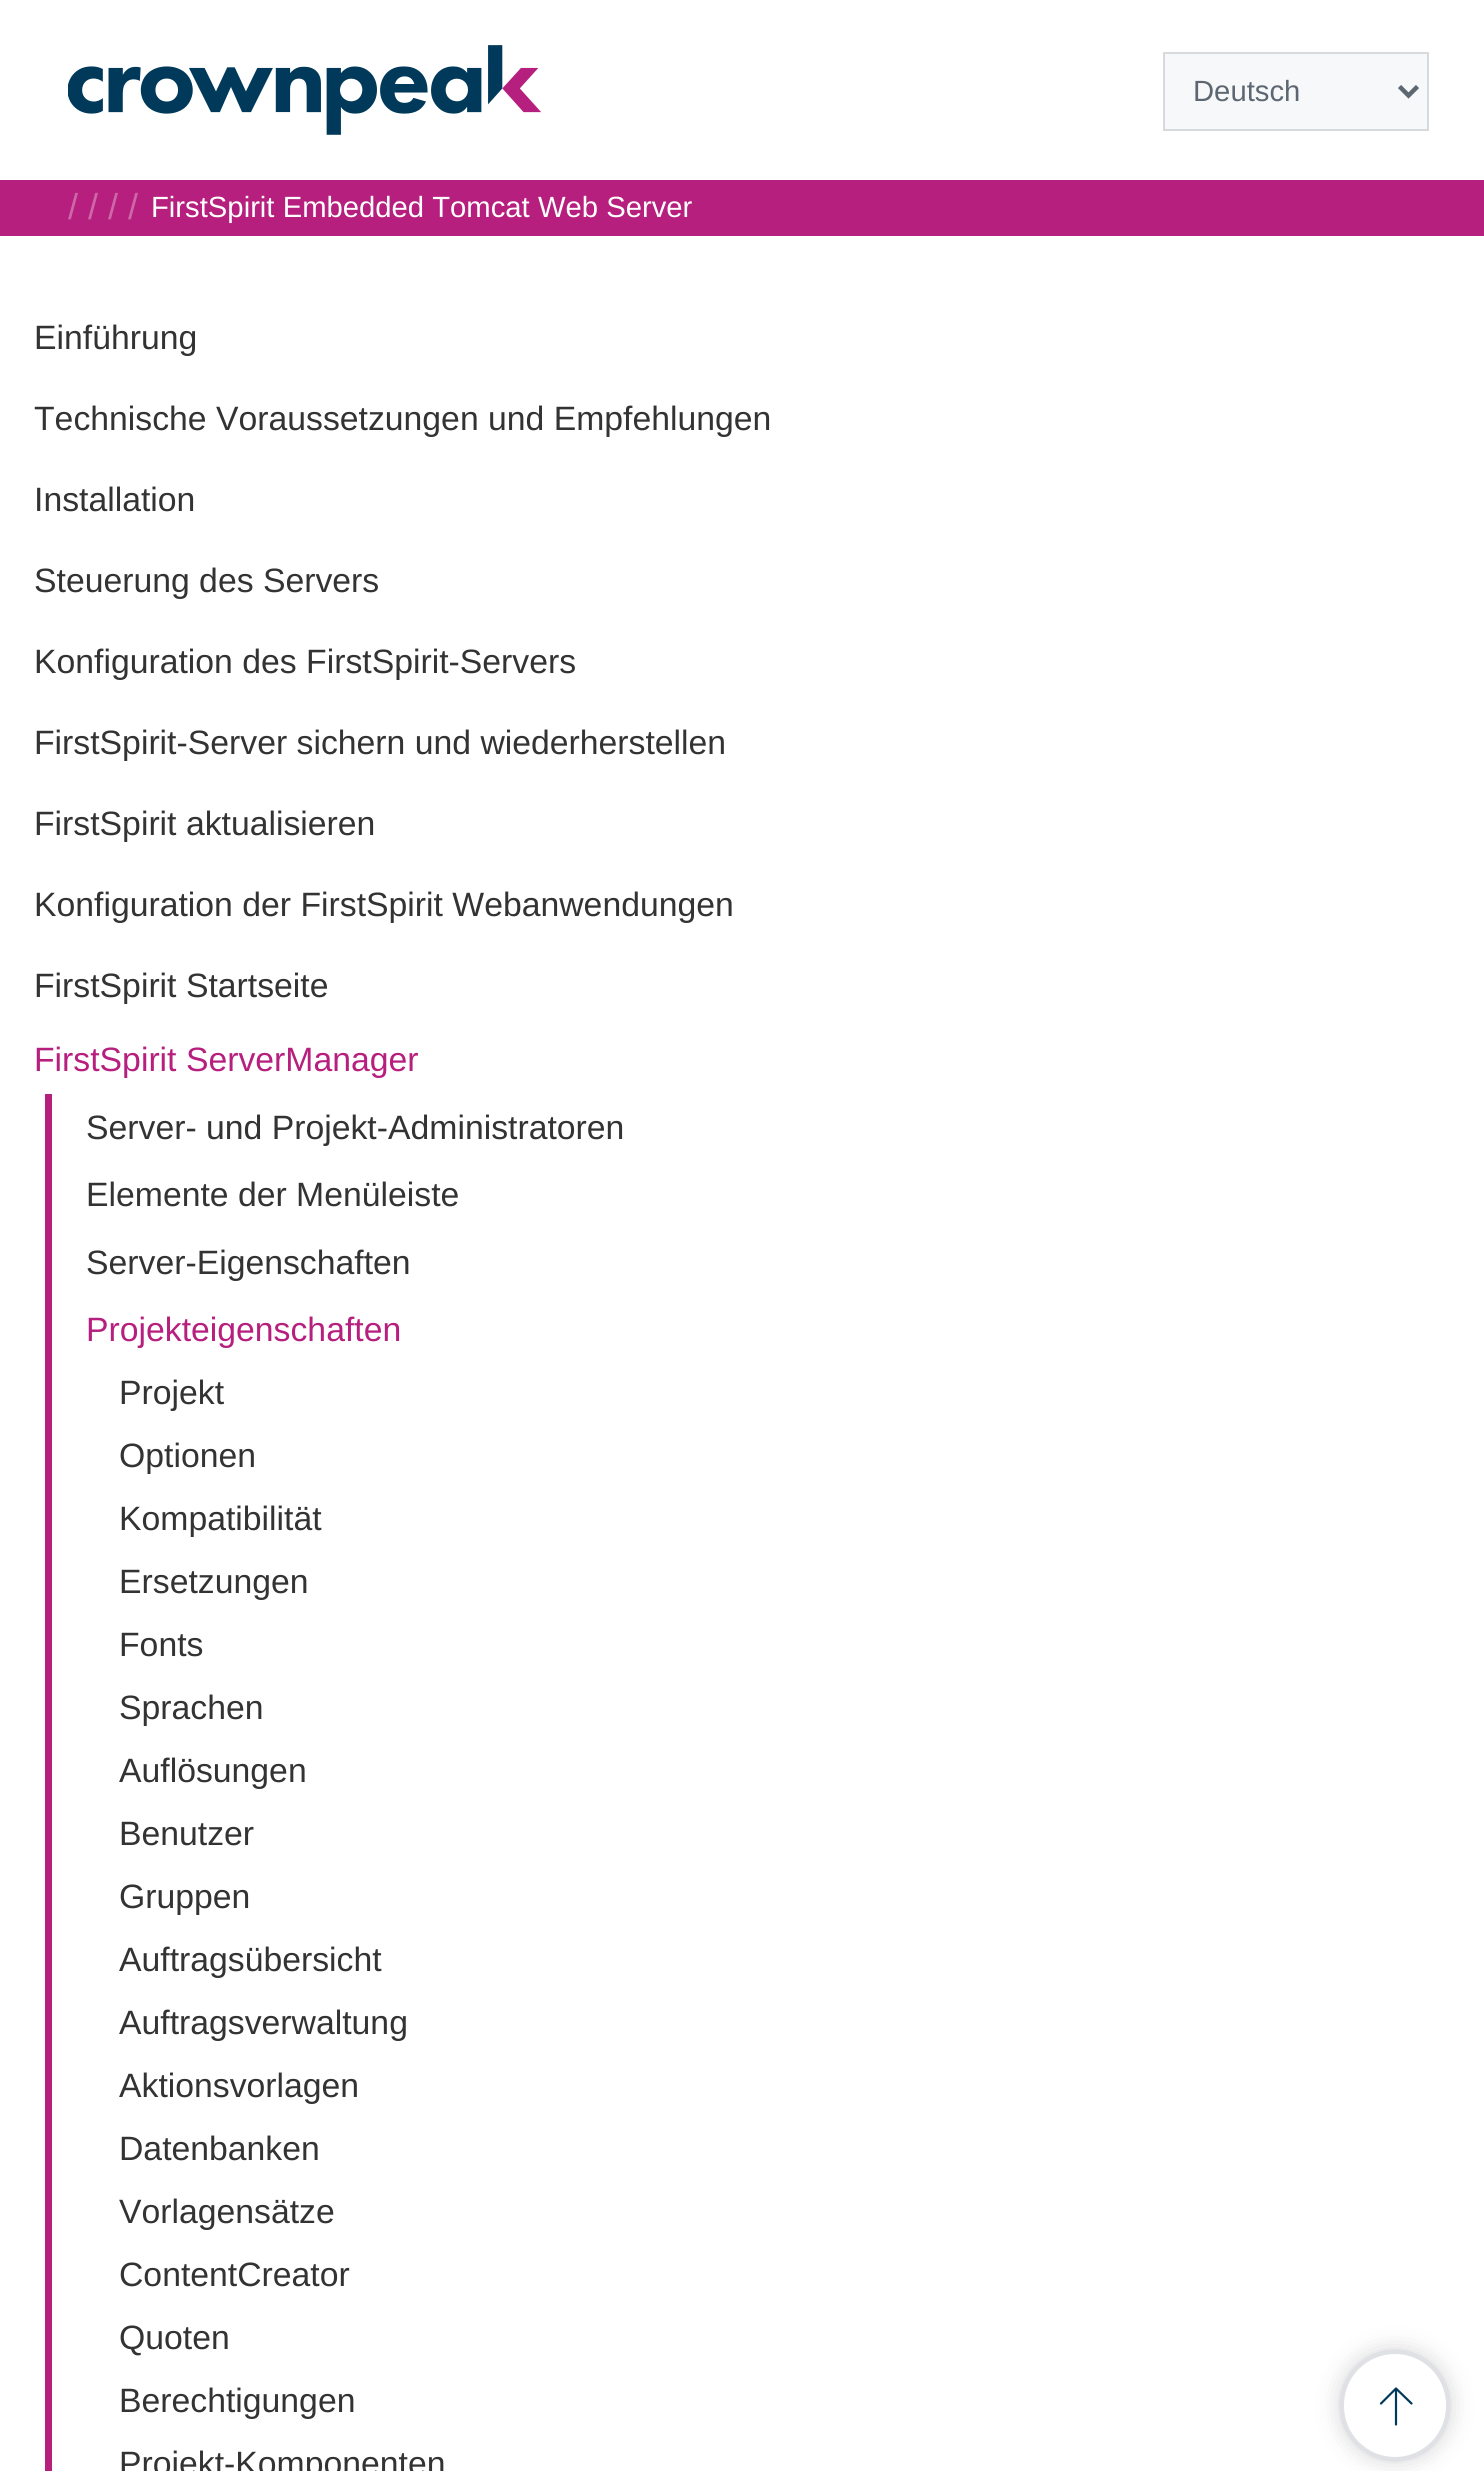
import math
import cairo


def use_color(cr, r, g, b):
  cr.set_source_rgb(r / 255, g / 255, b / 255)

def text(cr, x, y, s, family, size, color, bold=False, italic=False):
  cr.select_font_face(family, cairo.FONT_SLANT_ITALIC if italic else cairo.FONT_SLANT_NORMAL, cairo.FONT_WEIGHT_BOLD if bold else cairo.FONT_WEIGHT_NORMAL)
  cr.set_font_size(size)
  use_color(cr, *color)
  cr.move_to(x, y)
  cr.show_text(s)

def box(cr, x, y, w, h, *color):
  use_color(cr, *color)
  cr.rectangle(x, y, w, h)
  cr.fill()

def round_rect(cr, x, y, w, h, r):
  cr.new_sub_path()
  for i, (u, v) in enumerate([(x + w - r, y + h - r), (x + r, y + h - r), (x + r, y + r), (x + w - r, y + r)]):
    cr.arc(u, v, r, i * math.pi / 2, (i + 1) * math.pi / 2)
  cr.close_path()

def shadow(cr, x, y, w, h, r, blur, alpha):
  cr.push_group_with_content(cairo.CONTENT_ALPHA)
  cr.set_operator(cairo.OPERATOR_SOURCE)
  for i in range(15, -16, -2):
    e = blur * i / 6
    if min(w, h) + 2 * e > 0:
      cr.set_source_rgba(0, 0, 0, alpha * math.erfc((i - 1) / 8.5) / 2)
      round_rect(cr, x - e, y - e, w + 2 * e, h + 2 * e, max(0, min(r + e + blur * .6, min(w, h) / 2 + e)))
      cr.fill()
  cr.mask(cr.pop_group())

def picture(cr, path, x, y, w, h):
  cr.save()
  cr.set_source_surface(cairo.ImageSurface.create_from_png(path), x, y)
  cr.rectangle(x, y, w, h)
  cr.fill()
  cr.restore()

def draw(cr):
  use_color(cr, 255, 255, 255)
  cr.paint()
  picture(cr, "img_01.png", 68, 45, 473, 90)
  use_color(cr, 51, 51, 51)
  shadow(cr, 1339, 2349, 112, 113, 56, 11, 0.2)
  use_color(cr, 255, 255, 255)
  round_rect(cr, 1339, 2349, 112, 113, 56)
  cr.fill()
  cr.new_path()
  cr.move_to(1396, 2424.5)
  cr.line_to(1396, 2390.5)
  use_color(cr, 0, 57, 90)
  cr.set_line_width(2.2)
  cr.set_line_cap(cairo.LINE_CAP_ROUND)
  cr.stroke()
  cr.new_path()
  cr.move_to(1411.5, 2403.5)
  cr.line_to(1396, 2388.5)
  cr.line_to(1381, 2403.5)
  cr.set_line_join(cairo.LINE_JOIN_ROUND)
  cr.stroke()
  round_rect(cr, 1341.5, 2351.5, 107, 108, 53.5)
  use_color(cr, 223, 225, 229)
  cr.set_line_width(5)
  cr.set_line_cap(cairo.LINE_CAP_BUTT)
  cr.set_line_join(cairo.LINE_JOIN_MITER)
  cr.stroke()
  use_color(cr, 247, 248, 250)
  cr.rectangle(1164, 53, 264, 77)
  cr.fill_preserve()
  use_color(cr, 215, 217, 221)
  cr.set_line_width(2)
  cr.stroke()
  cr.new_path()
  cr.move_to(1399.5, 86.5)
  cr.line_to(1408.5, 95.5)
  cr.line_to(1417.5, 86.5)
  use_color(cr, 93, 103, 114)
  cr.set_line_width(4.5)
  cr.stroke()
  box(cr, 68, 180, 1416, 56, 182, 31, 126)
  box(cr, 45, 1094, 7, 1377, 182, 31, 126)
  text(cr, 1193, 101, "Deutsch", "Liberation Sans", 29.25, (93, 103, 114))
  text(cr, 68, 219, "/", "Liberation Sans", 36, (205, 103, 167))
  box(cr, 0, 180, 68, 56, 182, 31, 126)
  text(cr, 88, 219, "/ / /", "Liberation Sans", 36, (205, 103, 167))
  text(cr, 151, 217, "FirstSpirit Embedded Tomcat Web Server", "Liberation Sans", 29.25, (255, 255, 255))
  text(cr, 34, 349, "Einführung", "Liberation Sans", 33.75, (51, 51, 51))
  text(cr, 34, 430, "Technische Voraussetzungen und Empfehlungen", "Liberation Sans", 33.75, (51, 51, 51))
  text(cr, 34, 511, "Installation", "Liberation Sans", 33.75, (51, 51, 51))
  text(cr, 34, 592, "Steuerung des Servers", "Liberation Sans", 33.75, (51, 51, 51))
  text(cr, 34, 673, "Konfiguration des FirstSpirit-Servers", "Liberation Sans", 33.75, (51, 51, 51))
  text(cr, 34, 754, "FirstSpirit-Server sichern und wiederherstellen", "Liberation Sans", 33.75, (51, 51, 51))
  text(cr, 34, 835, "FirstSpirit aktualisieren", "Liberation Sans", 33.75, (51, 51, 51))
  text(cr, 34, 916, "Konfiguration der FirstSpirit Webanwendungen", "Liberation Sans", 33.75, (51, 51, 51))
  text(cr, 34, 997, "FirstSpirit Startseite", "Liberation Sans", 33.75, (51, 51, 51))
  text(cr, 34, 1071, "FirstSpirit ServerManager", "Liberation Sans", 33.75, (182, 31, 126))
  text(cr, 86, 1139, "Server- und Projekt-Administratoren", "Liberation Sans", 33.75, (51, 51, 51))
  text(cr, 86, 1206, "Elemente der Menüleiste", "Liberation Sans", 33.75, (51, 51, 51))
  text(cr, 86, 1274, "Server-Eigenschaften", "Liberation Sans", 33.75, (51, 51, 51))
  text(cr, 86, 1341, "Projekteigenschaften", "Liberation Sans", 33.75, (182, 31, 126))
  text(cr, 119, 1404, "Projekt", "Liberation Sans", 33.75, (51, 51, 51))
  text(cr, 119, 1467, "Optionen", "Liberation Sans", 33.75, (51, 51, 51))
  text(cr, 119, 1530, "Kompatibilität", "Liberation Sans", 33.75, (51, 51, 51))
  text(cr, 119, 1593, "Ersetzungen", "Liberation Sans", 33.75, (51, 51, 51))
  text(cr, 119, 1656, "Fonts", "Liberation Sans", 33.75, (51, 51, 51))
  text(cr, 119, 1719, "Sprachen", "Liberation Sans", 33.75, (51, 51, 51))
  text(cr, 119, 1782, "Auflösungen", "Liberation Sans", 33.75, (51, 51, 51))
  text(cr, 119, 1845, "Benutzer", "Liberation Sans", 33.75, (51, 51, 51))
  text(cr, 119, 1908, "Gruppen", "Liberation Sans", 33.75, (51, 51, 51))
  text(cr, 119, 1971, "Auftragsübersicht", "Liberation Sans", 33.75, (51, 51, 51))
  text(cr, 119, 2034, "Auftragsverwaltung", "Liberation Sans", 33.75, (51, 51, 51))
  text(cr, 119, 2097, "Aktionsvorlagen", "Liberation Sans", 33.75, (51, 51, 51))
  text(cr, 119, 2160, "Datenbanken", "Liberation Sans", 33.75, (51, 51, 51))
  text(cr, 119, 2223, "Vorlagensätze", "Liberation Sans", 33.75, (51, 51, 51))
  text(cr, 119, 2286, "ContentCreator", "Liberation Sans", 33.75, (51, 51, 51))
  text(cr, 119, 2349, "Quoten", "Liberation Sans", 33.75, (51, 51, 51))
  text(cr, 119, 2412, "Berechtigungen", "Liberation Sans", 33.75, (51, 51, 51))
  text(cr, 119, 2475, "Projekt-Komponenten", "Liberation Sans", 33.75, (51, 51, 51))


surface = cairo.ImageSurface(cairo.FORMAT_RGB24, 1484, 2471)
cr = cairo.Context(surface)
options = cairo.FontOptions()
options.set_hint_metrics(cairo.HINT_METRICS_OFF)
options.set_hint_style(cairo.HINT_STYLE_NONE)
cr.set_font_options(options)
cr.set_miter_limit(4)
draw(cr)
surface.write_to_png("out.png")
